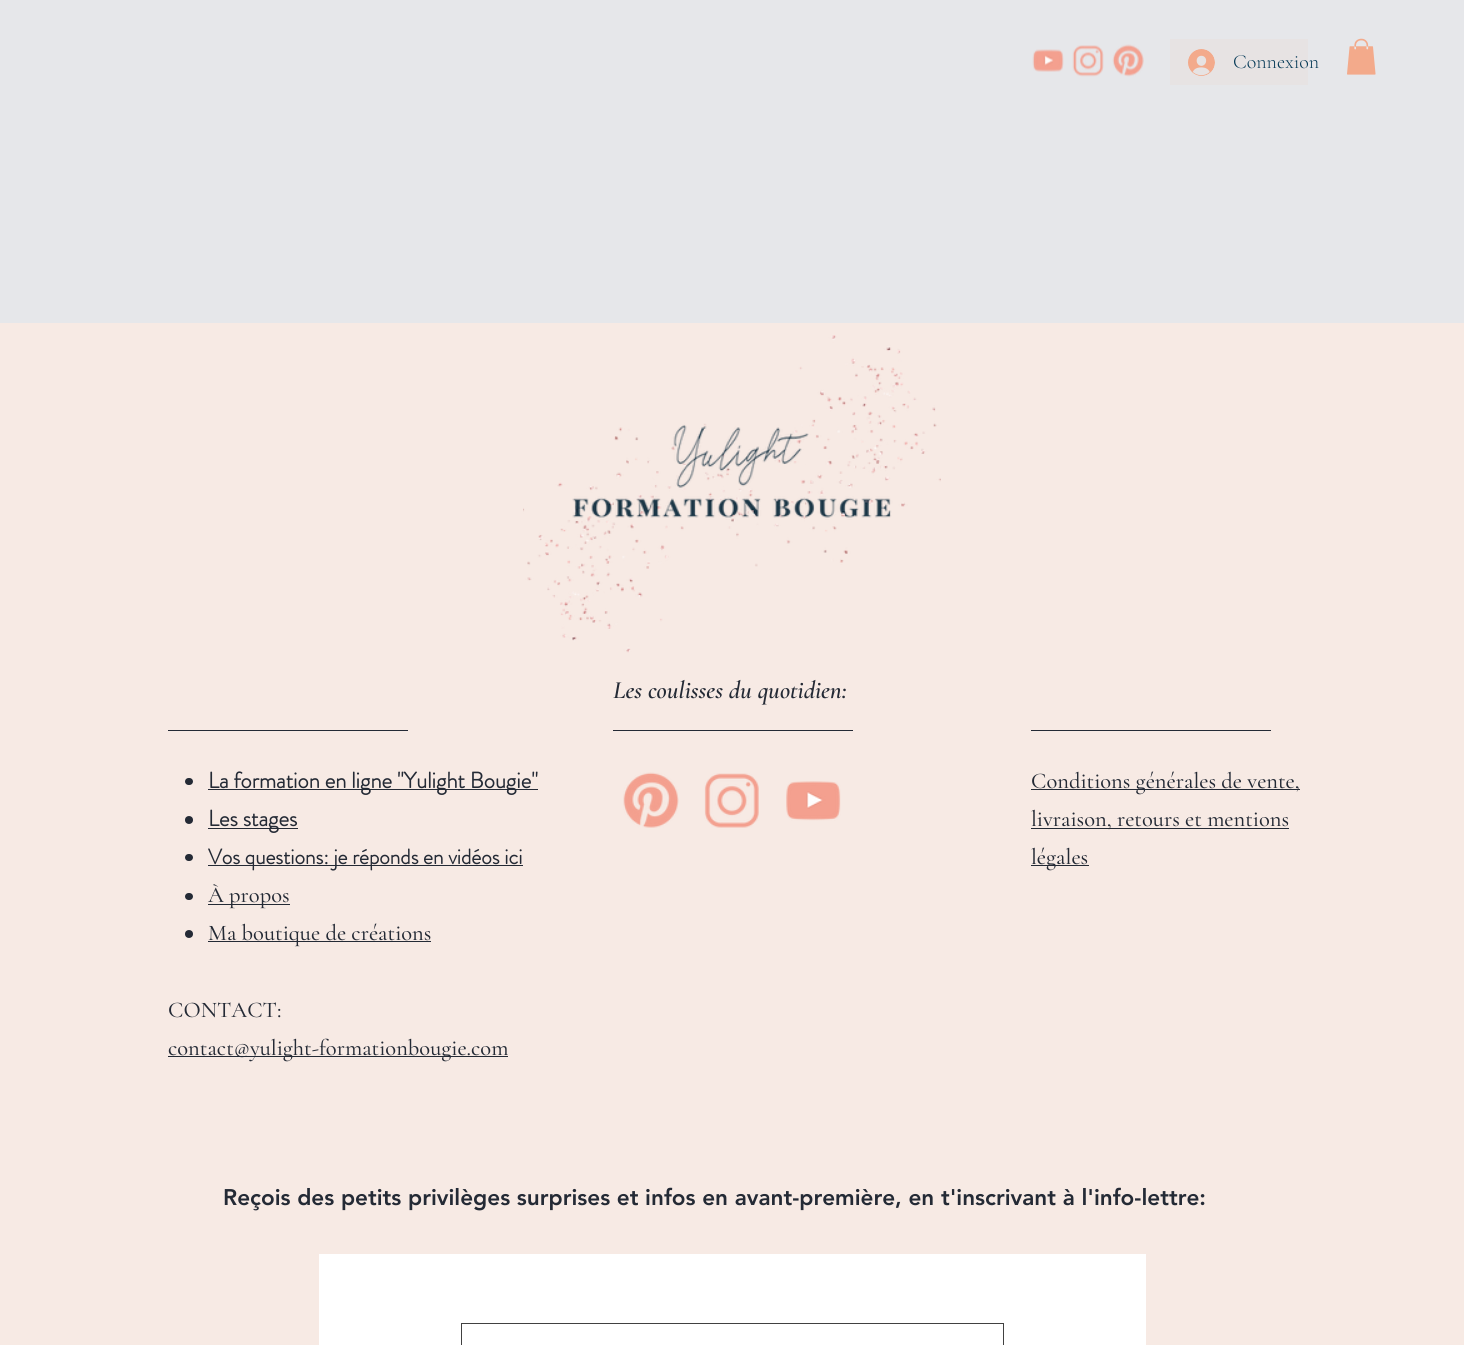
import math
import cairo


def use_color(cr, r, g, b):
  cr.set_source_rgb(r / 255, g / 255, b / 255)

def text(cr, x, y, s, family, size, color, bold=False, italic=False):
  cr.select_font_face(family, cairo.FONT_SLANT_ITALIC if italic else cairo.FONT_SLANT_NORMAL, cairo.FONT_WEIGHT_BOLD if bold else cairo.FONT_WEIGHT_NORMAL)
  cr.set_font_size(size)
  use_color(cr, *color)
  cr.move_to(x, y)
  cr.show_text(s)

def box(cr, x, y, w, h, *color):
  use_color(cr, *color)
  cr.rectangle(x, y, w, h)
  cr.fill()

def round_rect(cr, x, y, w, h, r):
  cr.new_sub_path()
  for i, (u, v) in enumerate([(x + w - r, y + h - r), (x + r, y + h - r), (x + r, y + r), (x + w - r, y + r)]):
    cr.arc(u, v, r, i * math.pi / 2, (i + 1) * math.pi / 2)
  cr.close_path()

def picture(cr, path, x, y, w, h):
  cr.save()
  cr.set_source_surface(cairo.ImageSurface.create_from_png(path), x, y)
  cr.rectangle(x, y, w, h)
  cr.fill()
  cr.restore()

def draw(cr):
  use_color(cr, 230, 231, 234)
  cr.paint()
  picture(cr, "img_01.png", 1032, 49, 32, 23)
  picture(cr, "img_02.png", 1072, 45, 32, 32)
  picture(cr, "img_03.png", 1112, 44, 32, 33)
  box(cr, 1170, 39, 138, 46, 231, 227, 227)
  picture(cr, "img_04.png", 1188, 49, 27, 27)
  picture(cr, "img_05.png", 1347, 38, 29, 37)
  box(cr, 0, 323, 1464, 1022, 247, 234, 228)
  picture(cr, "img_06.png", 523, 335, 418, 318)
  box(cr, 168, 730, 240, 1, 36, 42, 53)
  box(cr, 613, 730, 240, 1, 36, 42, 53)
  box(cr, 1031, 730, 240, 1, 36, 42, 53)
  round_rect(cr, 185, 778, 8, 7, 3.5)
  cr.fill()
  box(cr, 208, 789, 330, 1, 36, 42, 53)
  cr.arc(189, 820, 4, 0, 2 * math.pi)
  cr.fill()
  box(cr, 208, 828, 90, 1, 36, 42, 53)
  round_rect(cr, 185, 854, 8, 7, 3.5)
  cr.fill()
  box(cr, 208, 865, 315, 1, 36, 42, 53)
  round_rect(cr, 185, 893, 8, 7, 3.5)
  cr.fill()
  box(cr, 208, 904, 82, 1, 36, 42, 53)
  cr.arc(189, 934, 4, 0, 2 * math.pi)
  cr.fill()
  box(cr, 208, 941, 223, 1, 36, 42, 53)
  box(cr, 168, 1056, 340, 1, 36, 42, 53)
  box(cr, 1031, 789, 269, 1, 36, 42, 53)
  box(cr, 1031, 828, 258, 1, 36, 42, 53)
  box(cr, 1031, 865, 58, 1, 36, 42, 53)
  picture(cr, "img_07.png", 623, 772, 56, 56)
  picture(cr, "img_08.png", 704, 773, 55, 55)
  picture(cr, "img_09.png", 786, 781, 55, 40)
  box(cr, 319, 1254, 827, 91, 255, 255, 255)
  cr.rectangle(461.5, 1323.5, 542, 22)
  use_color(cr, 65, 65, 65)
  cr.set_line_width(1)
  cr.stroke()
  text(cr, 1233, 68, "Connexion", "Cormorant Garamond Light", 20, (6, 58, 87))
  text(cr, 613, 698, "Les coulisses du quotidien:", "Cormorant Garamond SemiBold", 25, (36, 42, 53), italic=True)
  text(cr, 208, 788, "La formation en ligne \"Yulight Bougie\"", "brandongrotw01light", 22.5, (36, 42, 53), bold=True)
  text(cr, 208, 826, "Les stages", "brandongrotw01light", 22.5, (36, 42, 53), bold=True)
  text(cr, 208, 864, "Vos questions: je réponds en vidéos ici", "brandongrotw01light", 21.25, (36, 42, 53), bold=True)
  text(cr, 208, 902, "À propos", "Cormorant Garamond Medium", 22.5, (36, 42, 53))
  text(cr, 208, 940, "Ma boutique de créations", "Cormorant Garamond Medium", 22.5, (36, 42, 53))
  text(cr, 168, 1017, "CONTACT:", "Cormorant Garamond Medium", 22.5, (36, 42, 53))
  text(cr, 168, 1055, "contact@yulight-formationbougie.com", "Cormorant Garamond Medium", 22.5, (36, 42, 53))
  text(cr, 1031, 788, "Conditions générales de vente,", "Cormorant Garamond Medium", 22.5, (36, 42, 53))
  text(cr, 1031, 826, "livraison, retours et mentions", "Cormorant Garamond Medium", 22.5, (36, 42, 53))
  text(cr, 1031, 864, "légales", "Cormorant Garamond Medium", 22.5, (36, 42, 53))
  text(cr, 223, 1205, "Reçois des petits privilèges surprises et infos en avant-première, en t'inscrivant à l'info-lettre:", "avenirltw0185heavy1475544 Black", 22.5, (36, 42, 53))


surface = cairo.ImageSurface(cairo.FORMAT_RGB24, 1464, 1345)
cr = cairo.Context(surface)
options = cairo.FontOptions()
options.set_hint_metrics(cairo.HINT_METRICS_OFF)
options.set_hint_style(cairo.HINT_STYLE_NONE)
cr.set_font_options(options)
cr.set_miter_limit(4)
draw(cr)
surface.write_to_png("out.png")
